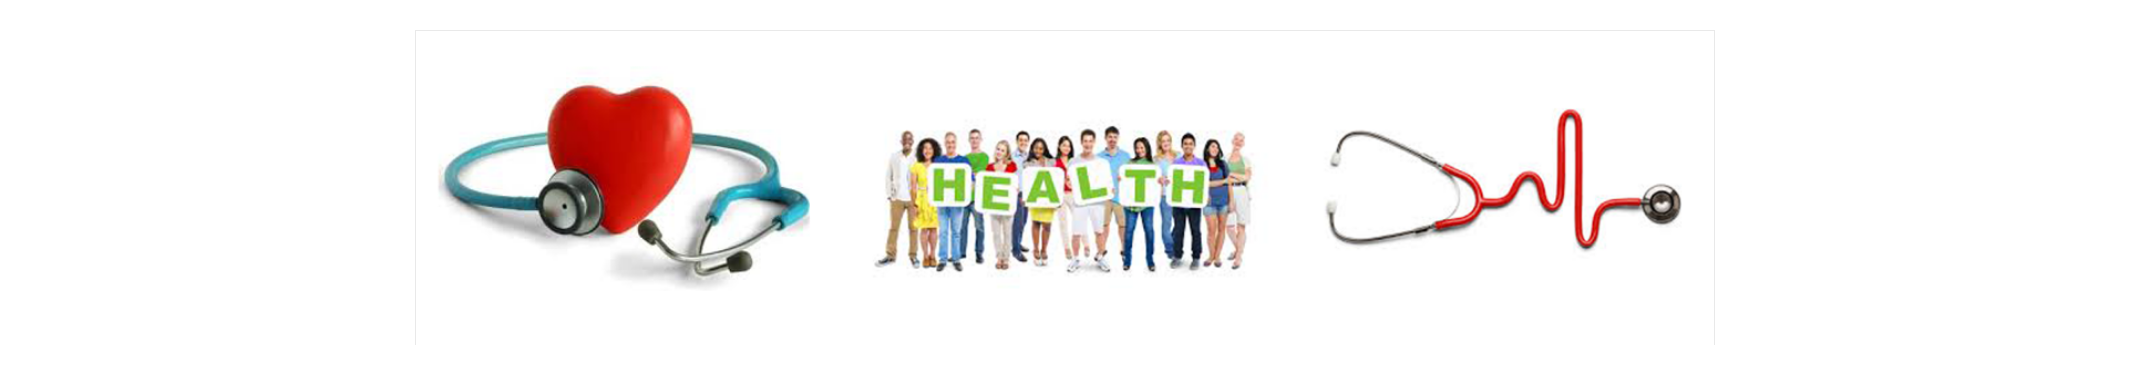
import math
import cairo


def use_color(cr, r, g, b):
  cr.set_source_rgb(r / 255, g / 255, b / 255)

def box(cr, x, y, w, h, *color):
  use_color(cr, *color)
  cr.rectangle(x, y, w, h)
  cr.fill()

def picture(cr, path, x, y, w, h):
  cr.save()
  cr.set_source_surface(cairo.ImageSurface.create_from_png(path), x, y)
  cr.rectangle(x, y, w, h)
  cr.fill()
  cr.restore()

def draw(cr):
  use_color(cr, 255, 255, 255)
  cr.paint()
  box(cr, 415, 30, 1300, 1, 233, 233, 233)
  box(cr, 1714, 30, 1, 315, 233, 233, 233)
  box(cr, 415, 30, 1, 315, 233, 233, 233)
  picture(cr, "img_01.png", 437, 66, 1245, 225)


surface = cairo.ImageSurface(cairo.FORMAT_RGB24, 2130, 372)
cr = cairo.Context(surface)
options = cairo.FontOptions()
options.set_hint_metrics(cairo.HINT_METRICS_OFF)
options.set_hint_style(cairo.HINT_STYLE_NONE)
cr.set_font_options(options)
cr.set_miter_limit(4)
draw(cr)
surface.write_to_png("out.png")
